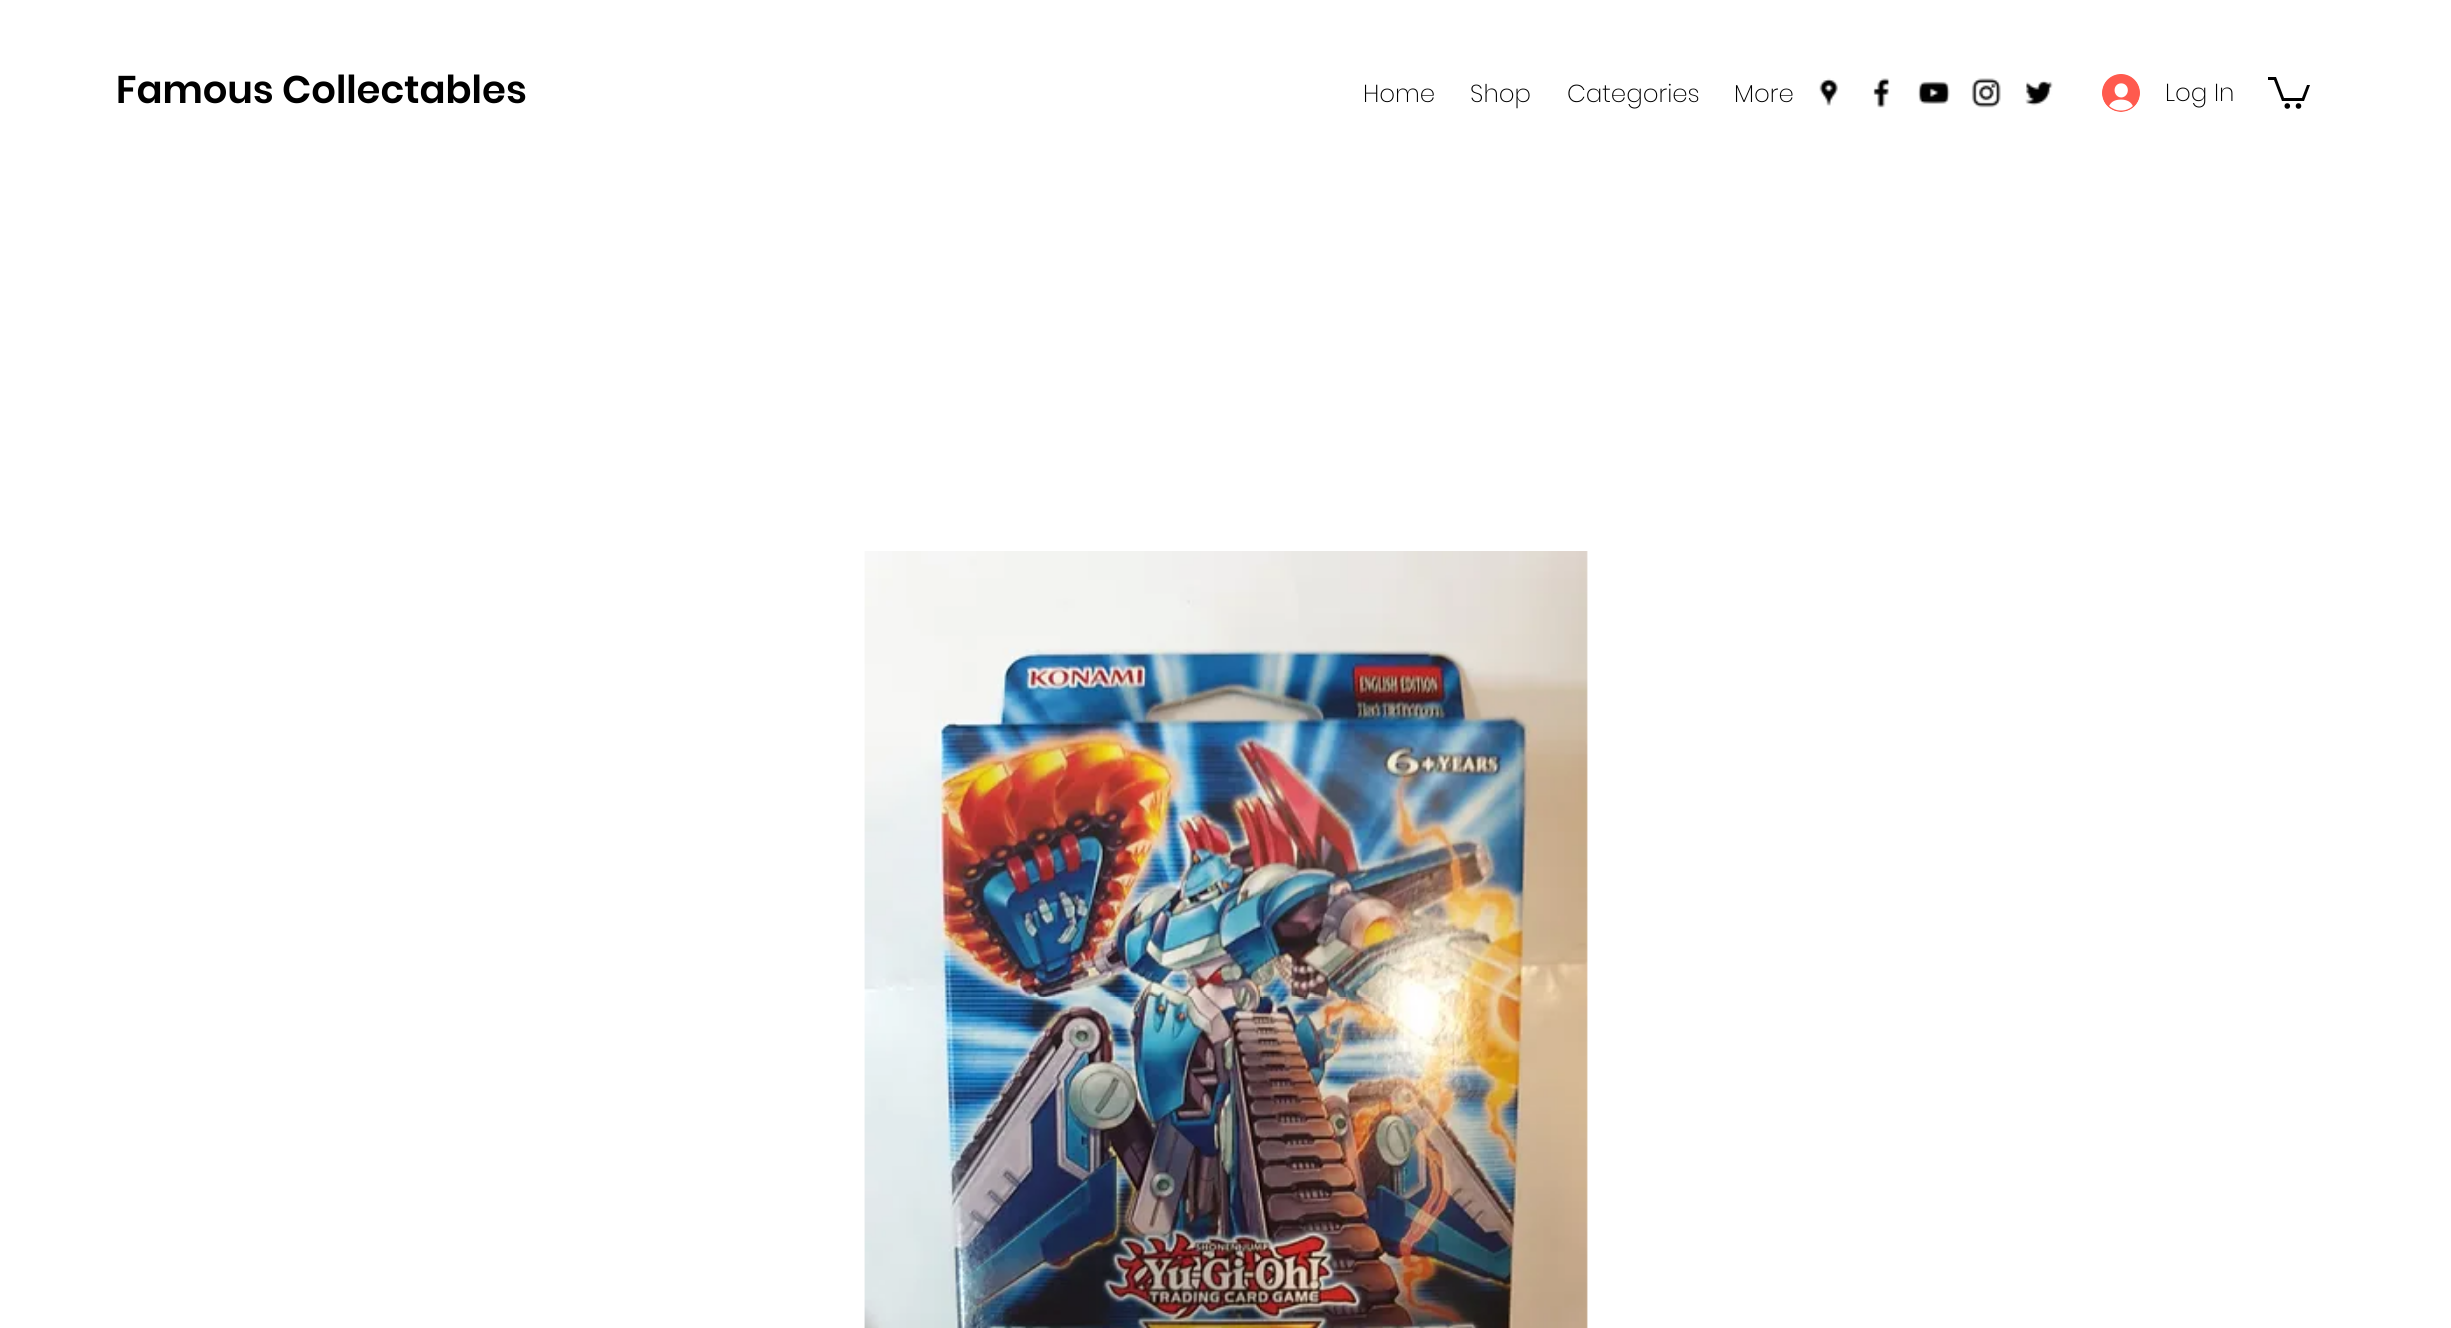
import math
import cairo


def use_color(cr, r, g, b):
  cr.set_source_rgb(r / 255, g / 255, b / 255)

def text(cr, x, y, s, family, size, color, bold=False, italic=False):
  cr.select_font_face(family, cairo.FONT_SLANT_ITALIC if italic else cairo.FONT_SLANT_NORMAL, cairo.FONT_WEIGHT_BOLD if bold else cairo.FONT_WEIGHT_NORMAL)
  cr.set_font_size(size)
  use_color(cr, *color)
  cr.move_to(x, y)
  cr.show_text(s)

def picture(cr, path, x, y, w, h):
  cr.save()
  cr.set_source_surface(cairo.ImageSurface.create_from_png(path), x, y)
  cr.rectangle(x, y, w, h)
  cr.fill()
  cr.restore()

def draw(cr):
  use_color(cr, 255, 255, 255)
  cr.paint()
  picture(cr, "img_01.png", 1819, 78, 19, 28)
  picture(cr, "img_02.png", 1873, 78, 17, 30)
  picture(cr, "img_03.png", 1918, 81, 32, 23)
  picture(cr, "img_04.png", 1971, 78, 30, 30)
  picture(cr, "img_05.png", 2025, 80, 28, 26)
  picture(cr, "img_06.png", 2102, 74, 38, 38)
  use_color(cr, 0, 0, 0)
  cr.new_path()
  cr.move_to(2310, 85)
  cr.line_to(2304, 101)
  cr.line_to(2282, 101)
  cr.line_to(2274, 80)
  cr.line_to(2268, 80)
  cr.line_to(2268, 77)
  cr.line_to(2276, 77)
  cr.line_to(2284, 98)
  cr.line_to(2302, 98)
  cr.line_to(2307, 85)
  cr.fill()
  cr.arc(2298.5, 106, 2.8, 0, 2 * math.pi)
  cr.fill()
  cr.arc(2287.3, 106, 2.8, 0, 2 * math.pi)
  cr.fill()
  picture(cr, "img_07.png", 864, 551, 724, 777)
  text(cr, 116, 103, "Famous Collectables", "Poppins SemiBold", 38.5, (0, 0, 0))
  text(cr, 1363, 102, "Home", "Poppins ExtraLight", 24.5, (0, 0, 0))
  text(cr, 1470, 102, "Shop", "Poppins ExtraLight", 24.5, (0, 0, 0))
  text(cr, 1567, 102, "Categories", "Poppins ExtraLight", 24.5, (0, 0, 0))
  text(cr, 1734, 102, "More", "Poppins ExtraLight", 24.5, (0, 0, 0))
  text(cr, 2165, 101, "Log In", "Poppins ExtraLight", 24.5, (0, 0, 0))


surface = cairo.ImageSurface(cairo.FORMAT_RGB24, 2451, 1328)
cr = cairo.Context(surface)
options = cairo.FontOptions()
options.set_hint_metrics(cairo.HINT_METRICS_OFF)
options.set_hint_style(cairo.HINT_STYLE_NONE)
cr.set_font_options(options)
cr.set_miter_limit(4)
draw(cr)
surface.write_to_png("out.png")
